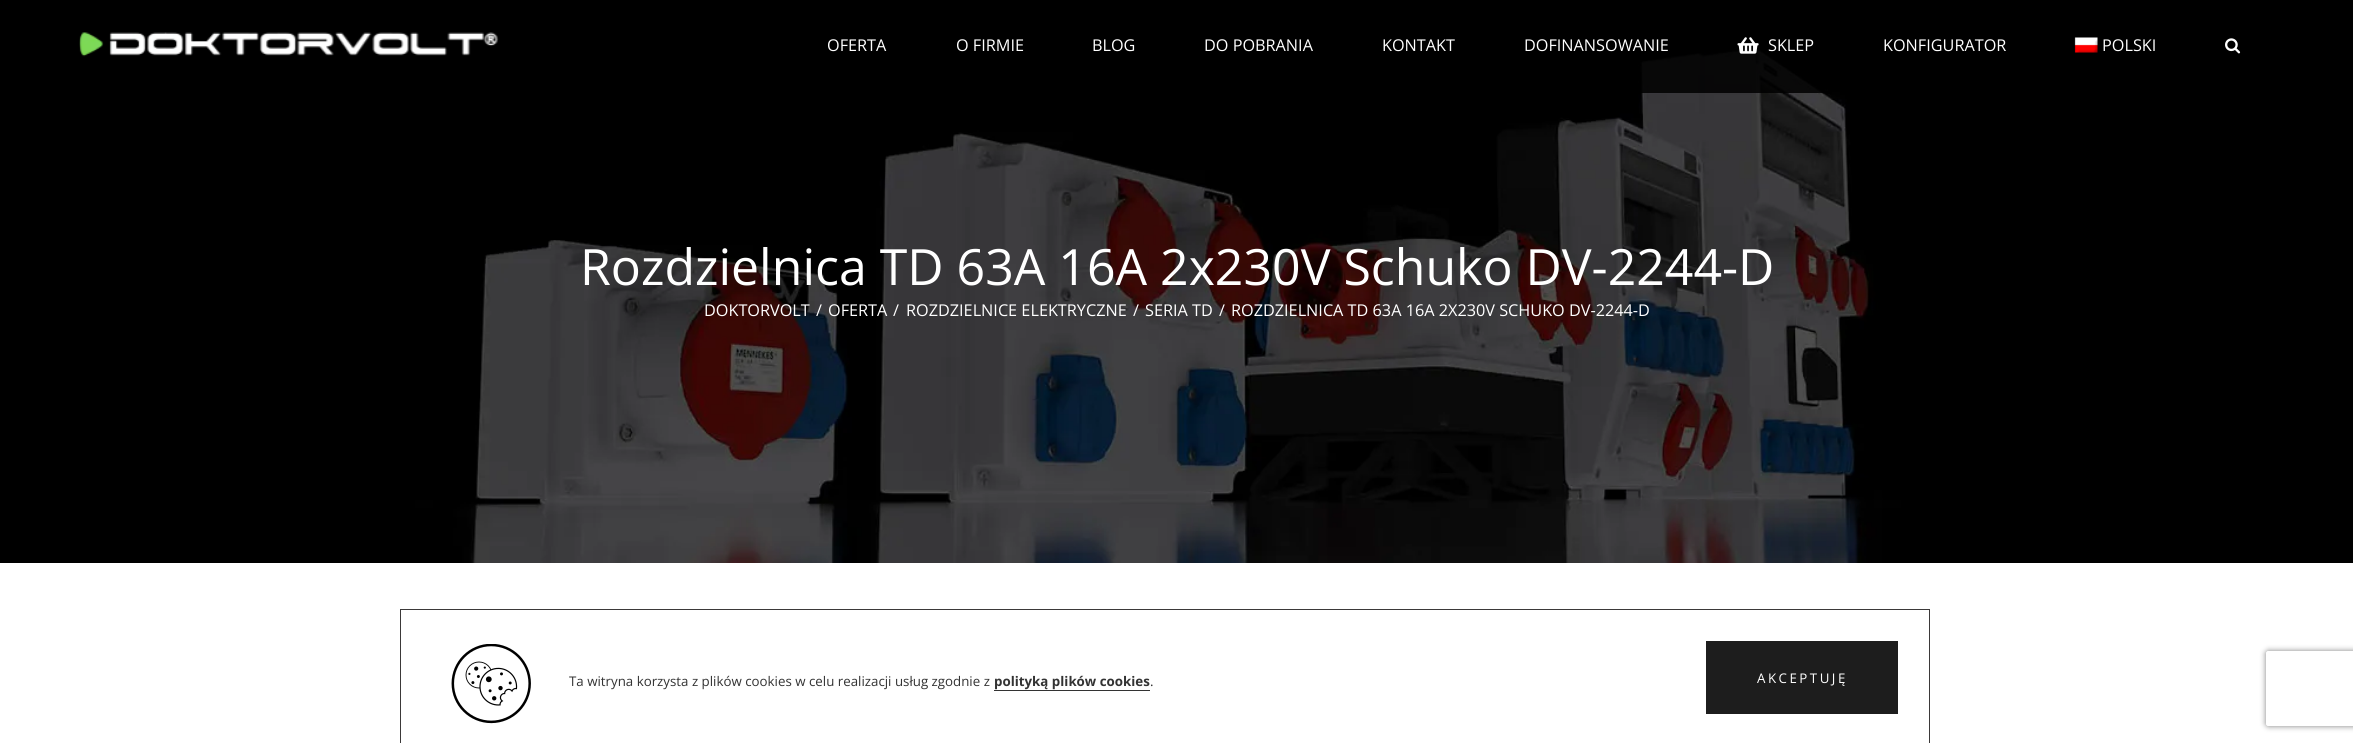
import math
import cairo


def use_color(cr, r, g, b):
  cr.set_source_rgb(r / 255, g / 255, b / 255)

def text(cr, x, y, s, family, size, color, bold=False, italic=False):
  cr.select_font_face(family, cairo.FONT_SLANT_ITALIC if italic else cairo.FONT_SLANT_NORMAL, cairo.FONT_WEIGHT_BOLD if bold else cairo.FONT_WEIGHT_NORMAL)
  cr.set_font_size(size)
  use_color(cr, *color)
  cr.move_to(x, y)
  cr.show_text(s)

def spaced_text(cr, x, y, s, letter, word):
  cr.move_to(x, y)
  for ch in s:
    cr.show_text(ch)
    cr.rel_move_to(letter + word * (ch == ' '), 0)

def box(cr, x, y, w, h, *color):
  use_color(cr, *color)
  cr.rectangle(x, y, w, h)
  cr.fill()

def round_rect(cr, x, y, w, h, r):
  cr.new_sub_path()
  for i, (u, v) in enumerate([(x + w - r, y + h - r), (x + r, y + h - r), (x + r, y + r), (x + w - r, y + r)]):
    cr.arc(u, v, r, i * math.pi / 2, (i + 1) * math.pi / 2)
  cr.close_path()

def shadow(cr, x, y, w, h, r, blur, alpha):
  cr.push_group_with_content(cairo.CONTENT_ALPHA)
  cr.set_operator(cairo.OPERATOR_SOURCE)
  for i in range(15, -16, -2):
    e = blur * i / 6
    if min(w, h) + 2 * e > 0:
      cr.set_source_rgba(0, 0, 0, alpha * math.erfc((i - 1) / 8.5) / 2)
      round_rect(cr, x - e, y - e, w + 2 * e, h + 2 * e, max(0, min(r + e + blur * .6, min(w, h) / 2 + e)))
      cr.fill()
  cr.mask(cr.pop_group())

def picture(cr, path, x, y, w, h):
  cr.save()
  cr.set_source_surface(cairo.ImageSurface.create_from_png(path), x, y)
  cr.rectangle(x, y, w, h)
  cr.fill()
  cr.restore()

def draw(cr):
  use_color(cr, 255, 255, 255)
  cr.paint()
  picture(cr, "img_05.png", 0, 0, 2353, 563)
  cr.set_source_rgba(0, 0, 0, 0.86)
  cr.rectangle(1638, 47, 189, 46)
  cr.fill()
  picture(cr, "img_01.png", 79, 32, 420, 25)
  picture(cr, "img_02.png", 1737, 37, 22, 17)
  picture(cr, "img_03.png", 2074, 37, 24, 16)
  picture(cr, "img_04.png", 2225, 38, 16, 16)
  cr.rectangle(400.5, 609.5, 1529, 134)
  use_color(cr, 59, 57, 57)
  cr.set_line_width(1)
  cr.stroke()
  picture(cr, "img_06.png", 451, 644, 80, 80)
  box(cr, 994, 690, 156, 1, 51, 51, 51)
  box(cr, 1706, 641, 192, 73, 29, 29, 29)
  cr.save()
  cr.set_fill_rule(cairo.FILL_RULE_EVEN_ODD)
  cr.new_path()
  cr.move_to(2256, 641)
  cr.line_to(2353, 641)
  cr.line_to(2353, 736)
  cr.line_to(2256, 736)
  cr.close_path()
  cr.move_to(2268.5, 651)
  cr.line_to(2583.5, 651)
  cr.curve_to(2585, 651, 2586, 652, 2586, 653.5)
  cr.line_to(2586, 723.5)
  cr.curve_to(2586, 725, 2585, 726, 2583.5, 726)
  cr.line_to(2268.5, 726)
  cr.curve_to(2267, 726, 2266, 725, 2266, 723.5)
  cr.line_to(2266, 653.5)
  cr.curve_to(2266, 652, 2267, 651, 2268.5, 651)
  cr.close_path()
  cr.clip()
  use_color(cr, 128, 128, 128)
  shadow(cr, 2266, 651, 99, 75, 2.5, 3, 1)
  cr.restore()
  text(cr, 827, 51, "OFERTA", "Open Sans", 16.25, (255, 255, 255))
  text(cr, 956, 51, "O FIRMIE", "Open Sans", 16.25, (255, 255, 255))
  text(cr, 1092, 51, "BLOG", "Open Sans", 16.25, (255, 255, 255))
  text(cr, 1204, 51, "DO POBRANIA", "Open Sans", 16.25, (255, 255, 255))
  text(cr, 1382, 51, "KONTAKT", "Open Sans", 16.25, (255, 255, 255))
  text(cr, 1524, 51, "DOFINANSOWANIE", "Open Sans", 16.25, (255, 255, 255))
  text(cr, 1768, 51, "SKLEP", "Open Sans", 16.25, (255, 255, 255))
  text(cr, 1883, 51, "KONFIGURATOR", "Open Sans", 16.25, (255, 255, 255))
  text(cr, 2102, 51, "POLSKI", "Open Sans", 16.25, (255, 255, 255))
  text(cr, 580, 285, "Rozdzielnica TD 63A 16A 2x230V Schuko DV-2244-D", "Open Sans", 50, (255, 255, 255))
  text(cr, 704, 316, "DOKTORVOLT", "Open Sans", 16.25, (255, 255, 255))
  text(cr, 816, 316, "/", "Open Sans", 16.25, (255, 255, 255))
  text(cr, 828, 316, "OFERTA", "Open Sans", 16.25, (255, 255, 255))
  text(cr, 893, 316, "/", "Open Sans", 16.25, (255, 255, 255))
  text(cr, 906, 316, "ROZDZIELNICE ELEKTRYCZNE", "Open Sans", 16.25, (255, 255, 255))
  text(cr, 1133, 316, "/", "Open Sans", 16.25, (255, 255, 255))
  text(cr, 1145, 316, "SERIA TD", "Open Sans", 16.25, (255, 255, 255))
  text(cr, 1219, 316, "/", "Open Sans", 16.25, (255, 255, 255))
  text(cr, 1231, 316, "ROZDZIELNICA TD 63A 16A 2X230V SCHUKO DV-2244-D", "Open Sans", 16.25, (255, 255, 255))
  text(cr, 569, 686, "Ta witryna korzysta z plików cookies w celu realizacji usług zgodnie z", "Open Sans", 13.3, (51, 51, 51))
  text(cr, 994, 686, "polityką plików cookies", "Open Sans", 13.3, (51, 51, 51), bold=True)
  text(cr, 1150, 686, ".", "Open Sans", 13.3, (51, 51, 51))
  use_color(cr, 255, 255, 255)
  spaced_text(cr, 1757, 683, "AKCEPTUJĘ", 2.5, 0)


surface = cairo.ImageSurface(cairo.FORMAT_RGB24, 2353, 743)
cr = cairo.Context(surface)
options = cairo.FontOptions()
options.set_hint_metrics(cairo.HINT_METRICS_OFF)
options.set_hint_style(cairo.HINT_STYLE_NONE)
cr.set_font_options(options)
cr.set_miter_limit(4)
draw(cr)
surface.write_to_png("out.png")
